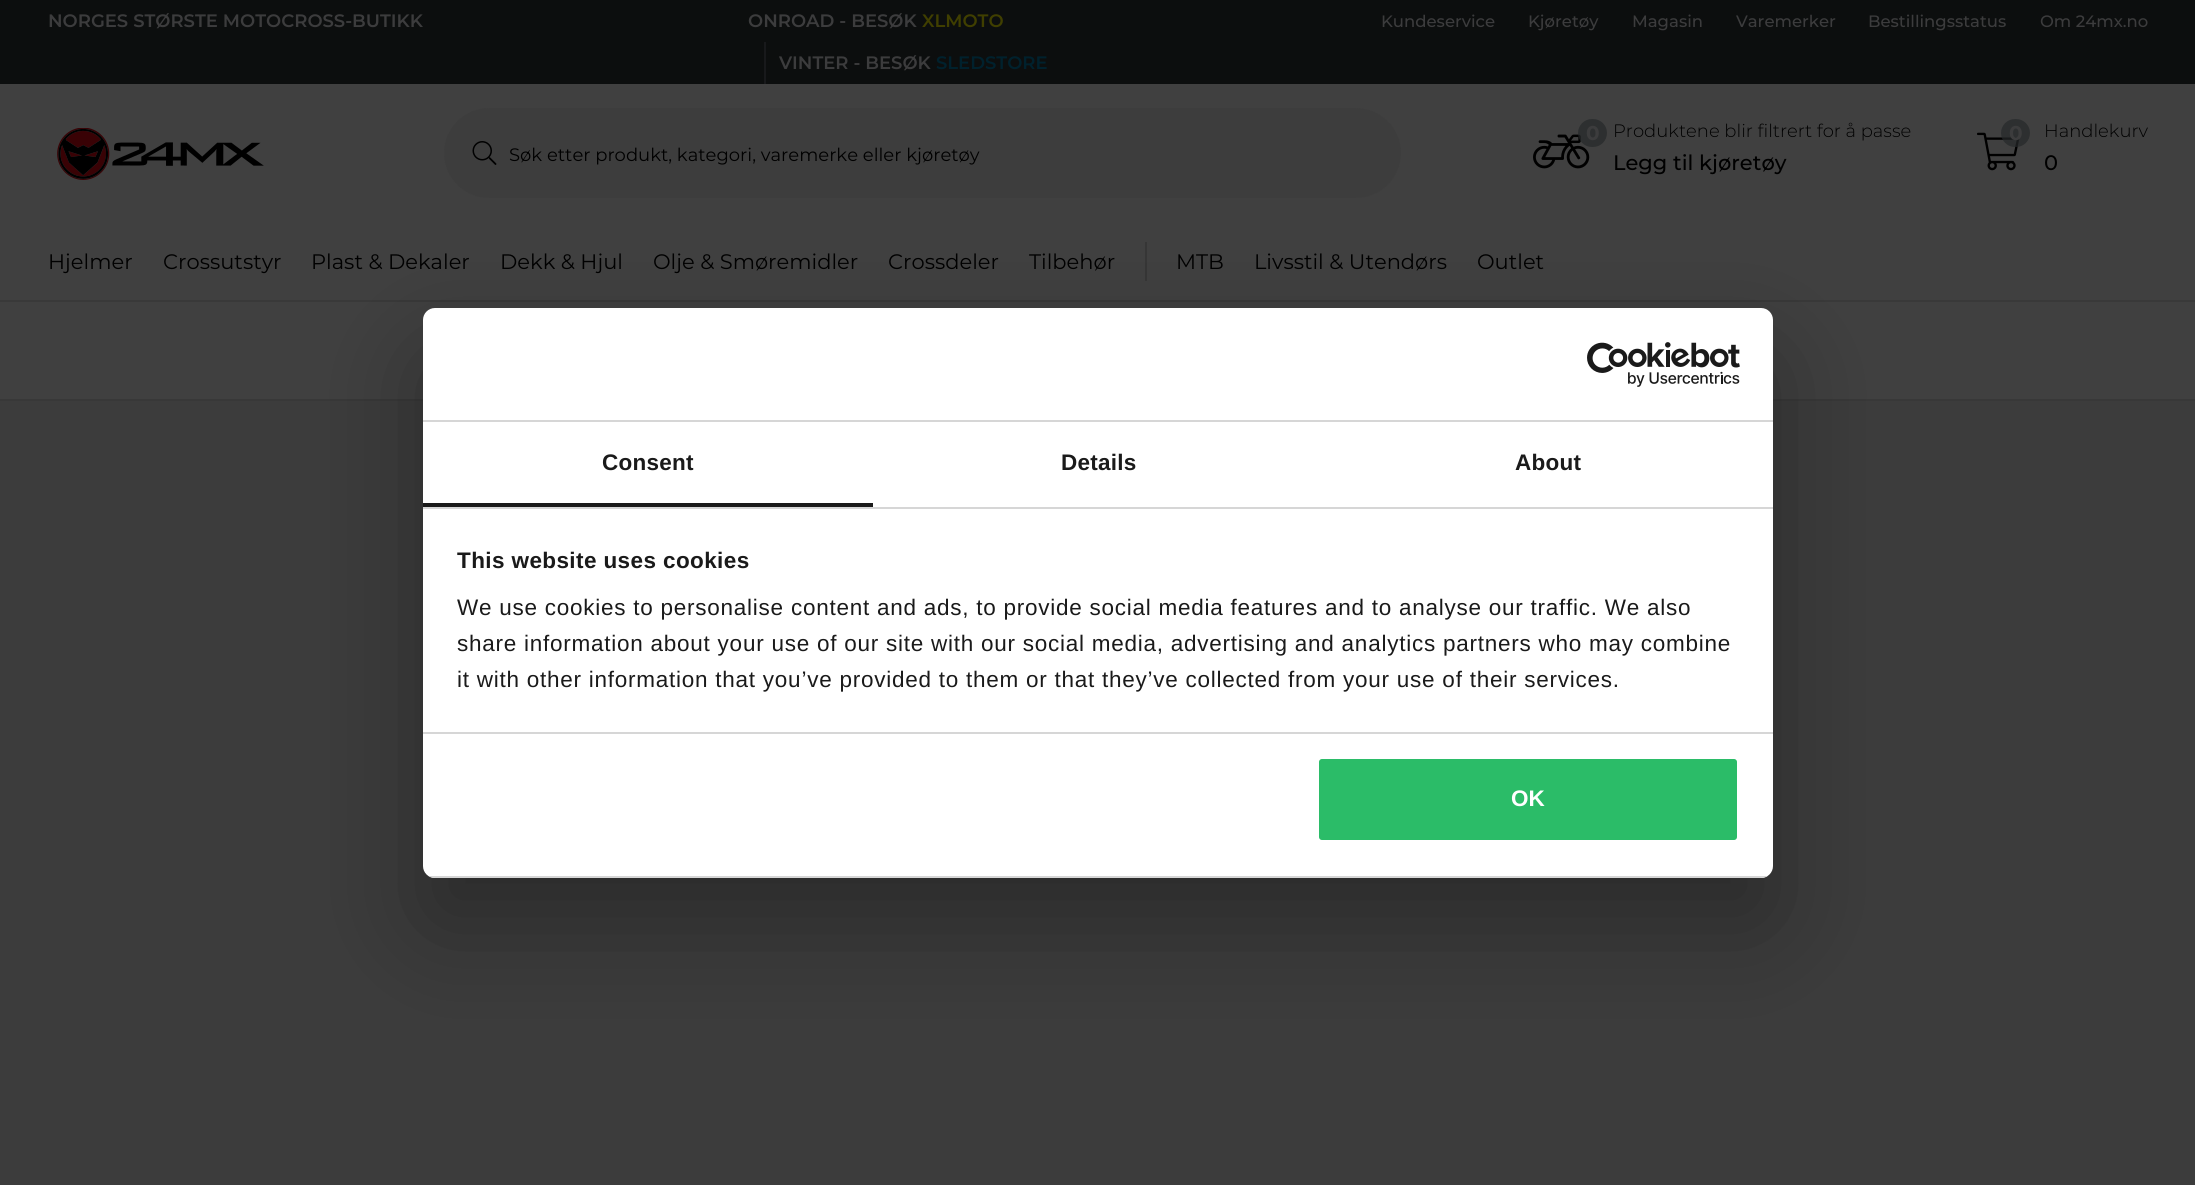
import math
import cairo


def use_color(cr, r, g, b):
  cr.set_source_rgb(r / 255, g / 255, b / 255)

def text(cr, x, y, s, family, size, color, bold=False, italic=False):
  cr.select_font_face(family, cairo.FONT_SLANT_ITALIC if italic else cairo.FONT_SLANT_NORMAL, cairo.FONT_WEIGHT_BOLD if bold else cairo.FONT_WEIGHT_NORMAL)
  cr.set_font_size(size)
  use_color(cr, *color)
  cr.move_to(x, y)
  cr.show_text(s)

def spaced_text(cr, x, y, s, letter, word):
  cr.move_to(x, y)
  for ch in s:
    cr.show_text(ch)
    cr.rel_move_to(letter + word * (ch == ' '), 0)

def box(cr, x, y, w, h, *color):
  use_color(cr, *color)
  cr.rectangle(x, y, w, h)
  cr.fill()

def round_rect(cr, x, y, w, h, r):
  cr.new_sub_path()
  for i, (u, v) in enumerate([(x + w - r, y + h - r), (x + r, y + h - r), (x + r, y + r), (x + w - r, y + r)]):
    cr.arc(u, v, r, i * math.pi / 2, (i + 1) * math.pi / 2)
  cr.close_path()

def shadow(cr, x, y, w, h, r, blur, alpha):
  cr.push_group_with_content(cairo.CONTENT_ALPHA)
  cr.set_operator(cairo.OPERATOR_SOURCE)
  for i in range(15, -16, -2):
    e = blur * i / 6
    if min(w, h) + 2 * e > 0:
      cr.set_source_rgba(0, 0, 0, alpha * math.erfc((i - 1) / 8.5) / 2)
      round_rect(cr, x - e, y - e, w + 2 * e, h + 2 * e, max(0, min(r + e + blur * .6, min(w, h) / 2 + e)))
      cr.fill()
  cr.mask(cr.pop_group())

def picture(cr, path, x, y, w, h):
  cr.save()
  cr.set_source_surface(cairo.ImageSurface.create_from_png(path), x, y)
  cr.rectangle(x, y, w, h)
  cr.fill()
  cr.restore()

def draw(cr):
  use_color(cr, 64, 64, 64)
  cr.paint()
  box(cr, 0, 300, 2195, 2, 57, 57, 57)
  box(cr, 0, 0, 2195, 84, 12, 14, 14)
  box(cr, 764, 42, 2, 42, 24, 25, 27)
  picture(cr, "img_01.png", 57, 128, 207, 52)
  use_color(cr, 61, 61, 61)
  round_rect(cr, 444, 108, 957, 90, 45)
  cr.fill()
  picture(cr, "img_02.png", 472, 141, 25, 24)
  picture(cr, "img_03.png", 1533, 134, 57, 35)
  cr.set_source_rgba(0.149, 0.157, 0.165, 0.7)
  round_rect(cr, 1578, 119, 29, 28, 14)
  cr.fill()
  picture(cr, "img_04.png", 1977, 132, 43, 39)
  round_rect(cr, 2001, 119, 29, 28, 14)
  cr.fill()
  box(cr, 1145, 242, 2, 39, 54, 54, 54)
  box(cr, 0, 399, 2195, 2, 56, 56, 56)
  box(cr, 0, 401, 2195, 784, 60, 60, 60)
  use_color(cr, 0, 0, 0)
  shadow(cr, 423, 356, 1350, 570, 12, 51, 0.3)
  use_color(cr, 255, 255, 255)
  round_rect(cr, 423, 308, 1350, 570, 12)
  cr.fill()
  box(cr, 423, 420, 1350, 2, 214, 214, 214)
  picture(cr, "img_05.png", 1587, 342, 153, 45)
  box(cr, 423, 507, 1350, 2, 214, 214, 214)
  box(cr, 423, 503, 450, 4, 26, 26, 26)
  box(cr, 423, 732, 1350, 2, 214, 214, 214)
  cr.save()
  round_rect(cr, 423, 308, 1350, 570, 12)
  cr.clip()
  box(cr, 423, 876, 1350, 2, 214, 214, 214)
  cr.restore()
  use_color(cr, 43, 188, 104)
  round_rect(cr, 1317.5, 757.5, 421, 84, 4.5)
  cr.fill_preserve()
  use_color(cr, 255, 255, 255)
  cr.set_line_width(3)
  cr.stroke()
  text(cr, 48, 27, "NORGES STØRSTE MOTOCROSS-BUTIKK", "Montserrat SemiBold", 18, (60, 60, 61))
  text(cr, 748, 27, "ONROAD - BESØK", "Montserrat SemiBold", 18, (60, 60, 61))
  text(cr, 922, 27, "XLMOTO", "Montserrat SemiBold", 18, (64, 63, 0))
  text(cr, 779, 69, "VINTER - BESØK", "Montserrat SemiBold", 18, (60, 60, 61))
  text(cr, 936, 69, "SLEDSTORE", "Montserrat SemiBold", 18, (0, 33, 45))
  text(cr, 1381, 27, "Kundeservice", "Montserrat Medium", 16.5, (60, 60, 61))
  text(cr, 1528, 27, "Kjøretøy", "Montserrat Medium", 16.5, (60, 60, 61))
  text(cr, 1632, 27, "Magasin", "Montserrat Medium", 16.5, (60, 60, 61))
  text(cr, 1736, 27, "Varemerker", "Montserrat Medium", 16.5, (60, 60, 61))
  text(cr, 1868, 27, "Bestillingsstatus", "Montserrat Medium", 16.5, (60, 60, 61))
  text(cr, 2040, 27, "Om 24mx.no", "Montserrat Medium", 16.5, (60, 60, 61))
  text(cr, 509, 161, "Søk etter produkt, kategori, varemerke eller kjøretøy", "Montserrat", 18, (0, 0, 0))
  text(cr, 1586, 140, "0", "Montserrat", 20, (60, 60, 61), bold=True)
  text(cr, 1613, 137, "Produktene blir filtrert for å passe", "Montserrat Light", 18, (0, 0, 0))
  text(cr, 1613, 170, "Legg til kjøretøy", "Montserrat Medium", 21, (0, 0, 0))
  text(cr, 2009, 140, "0", "Montserrat", 20, (60, 60, 61), bold=True)
  text(cr, 2044, 137, "Handlekurv", "Montserrat Light", 18, (0, 0, 0))
  text(cr, 2044, 170, "0", "Montserrat Medium", 21, (0, 0, 0))
  text(cr, 48, 269, "Hjelmer", "Montserrat", 21, (0, 0, 0))
  text(cr, 163, 269, "Crossutstyr", "Montserrat", 21, (0, 0, 0))
  text(cr, 311, 269, "Plast & Dekaler", "Montserrat", 21, (0, 0, 0))
  text(cr, 500, 269, "Dekk & Hjul", "Montserrat", 21, (0, 0, 0))
  text(cr, 653, 269, "Olje & Smøremidler", "Montserrat", 21, (0, 0, 0))
  text(cr, 888, 269, "Crossdeler", "Montserrat", 21, (0, 0, 0))
  text(cr, 1029, 269, "Tilbehør", "Montserrat", 21, (0, 0, 0))
  text(cr, 1176, 269, "MTB", "Montserrat", 21, (0, 0, 0))
  text(cr, 1254, 269, "Livsstil & Utendørs", "Montserrat", 21, (0, 0, 0))
  text(cr, 1477, 269, "Outlet", "Montserrat", 21, (0, 0, 0))
  cr.select_font_face("Liberation Sans", cairo.FONT_SLANT_NORMAL, cairo.FONT_WEIGHT_BOLD)
  cr.set_font_size(22.5)
  use_color(cr, 26, 26, 26)
  spaced_text(cr, 602, 470, "Consent", 0.25, 0)
  spaced_text(cr, 1061, 470, "Details", 0.25, 0)
  spaced_text(cr, 1515, 470, "About", 0.25, 0)
  spaced_text(cr, 457, 568, "This website uses cookies", 0.4, 0)
  cr.select_font_face("Liberation Sans")
  spaced_text(cr, 457, 615, "We use cookies to personalise content and ads, to provide social media features and to analyse our traffic. We also", 0.75, 0)
  spaced_text(cr, 457, 651, "share information about your use of our site with our social media, advertising and analytics partners who may combine", 0.75, 0)
  spaced_text(cr, 457, 687, "it with other information that you’ve provided to them or that they’ve collected from your use of their services.", 0.75, 0)
  text(cr, 1511, 806, "OK", "Liberation Sans", 22.5, (255, 255, 255), bold=True)


surface = cairo.ImageSurface(cairo.FORMAT_RGB24, 2195, 1185)
cr = cairo.Context(surface)
options = cairo.FontOptions()
options.set_hint_metrics(cairo.HINT_METRICS_OFF)
options.set_hint_style(cairo.HINT_STYLE_NONE)
cr.set_font_options(options)
cr.set_miter_limit(4)
draw(cr)
surface.write_to_png("out.png")
